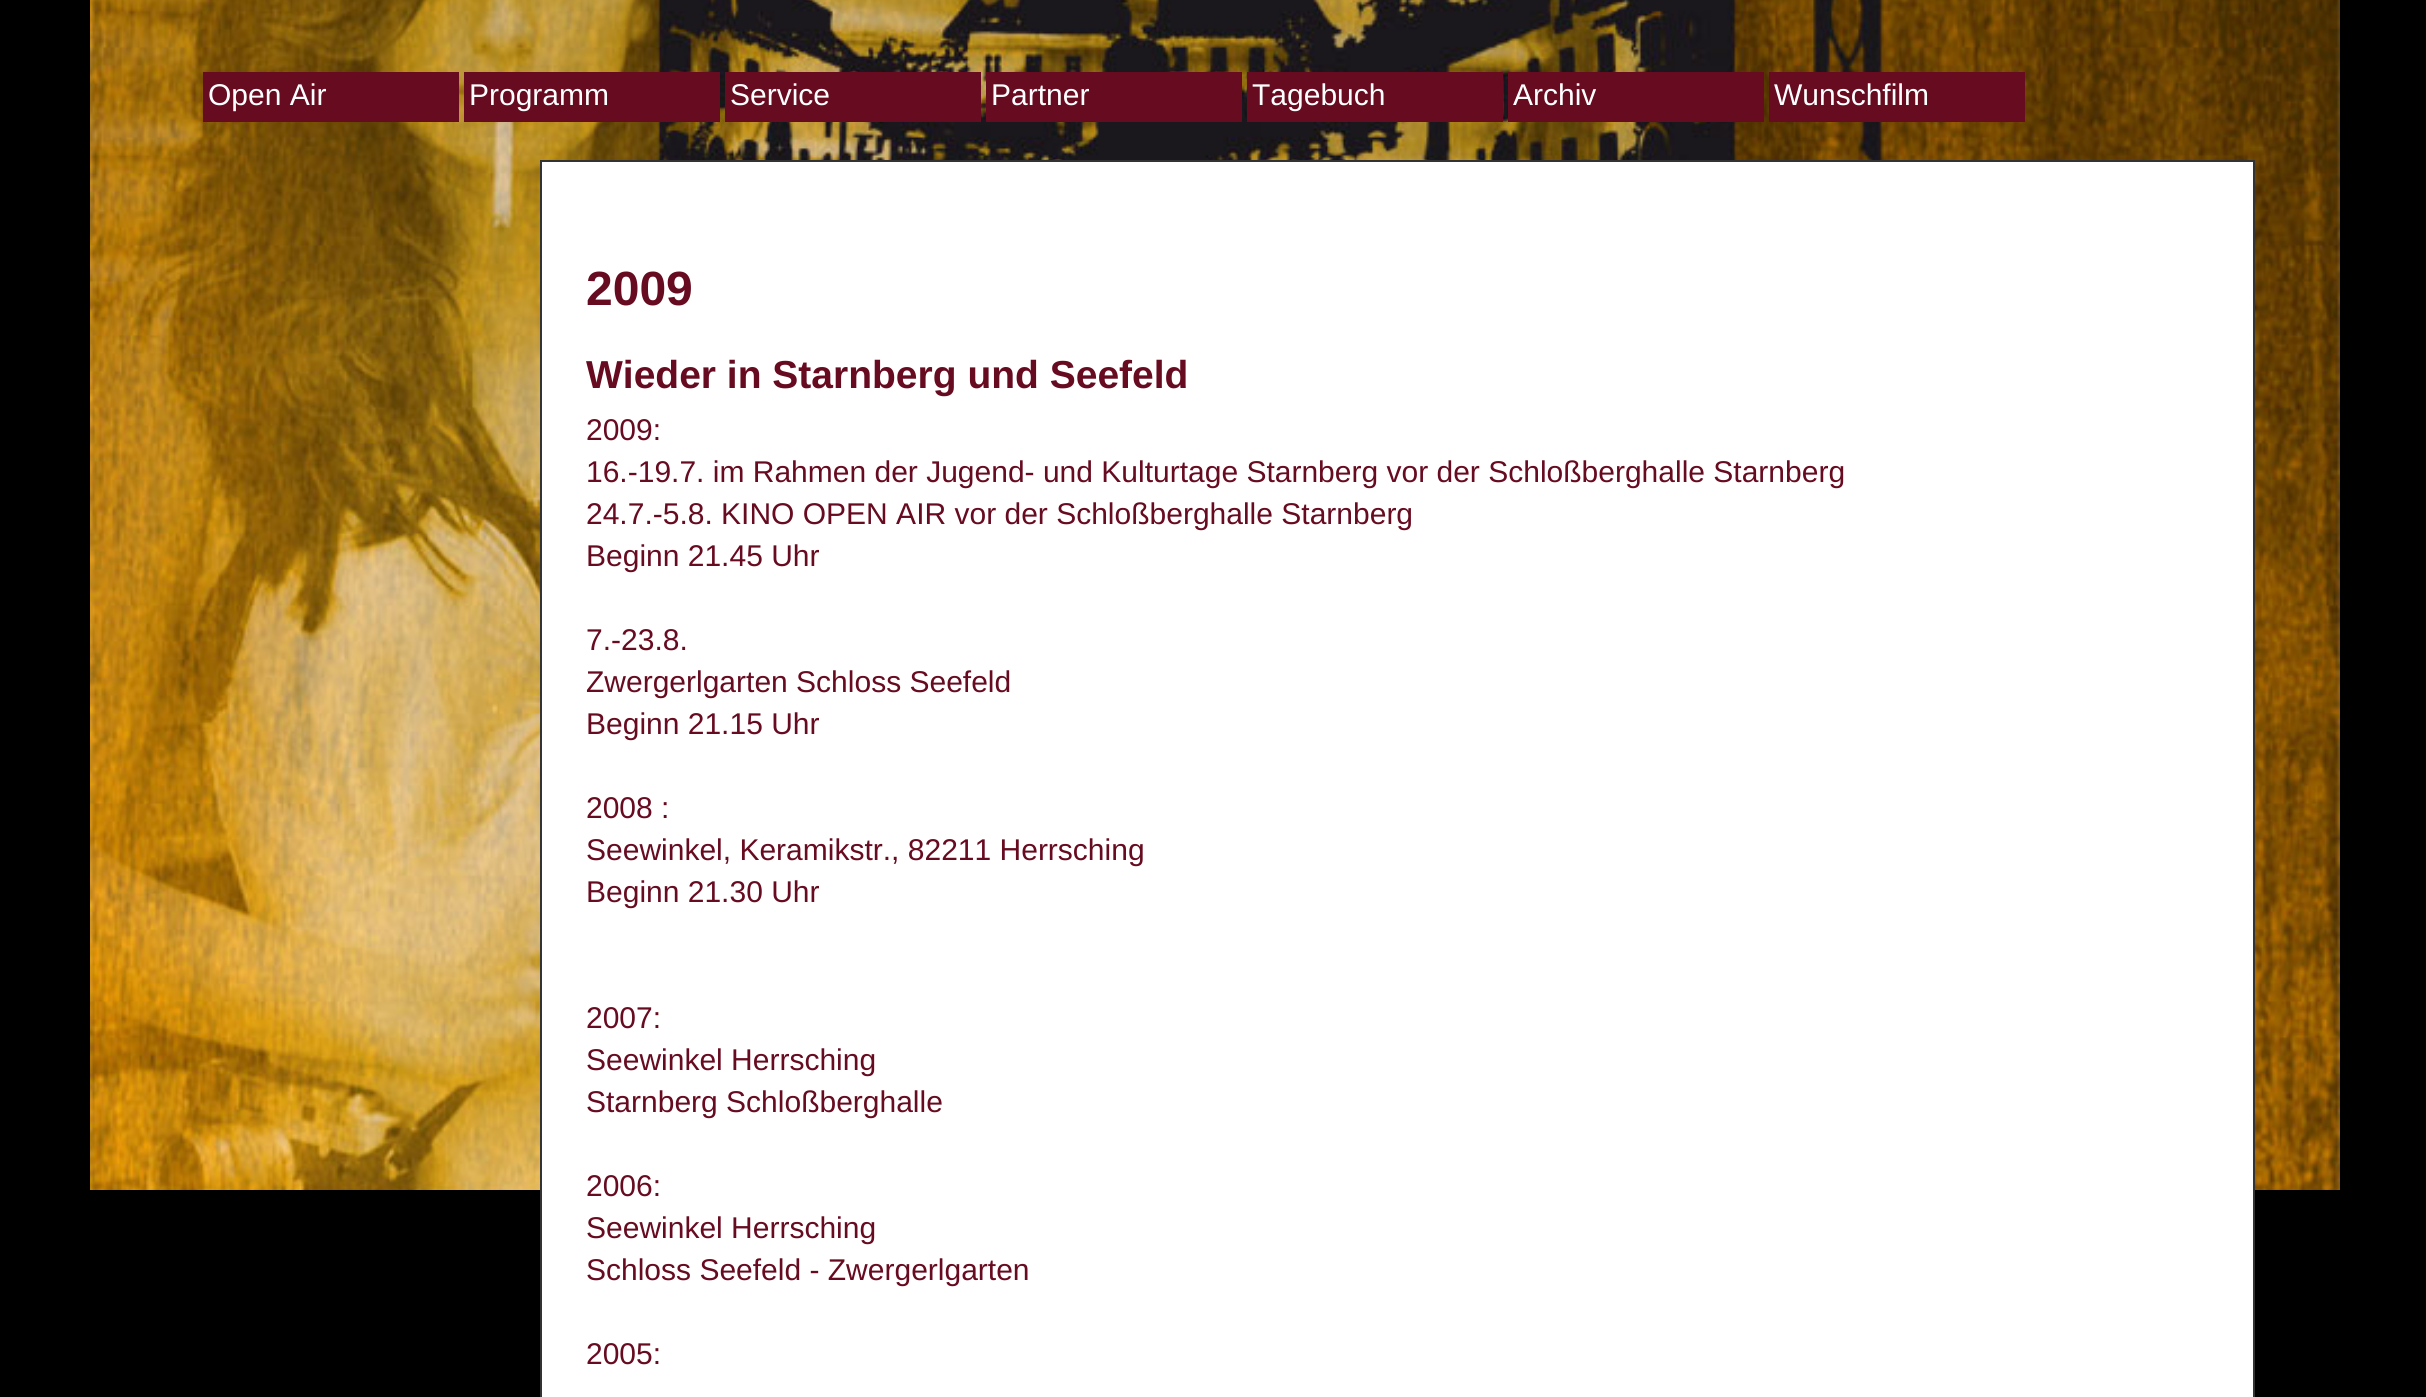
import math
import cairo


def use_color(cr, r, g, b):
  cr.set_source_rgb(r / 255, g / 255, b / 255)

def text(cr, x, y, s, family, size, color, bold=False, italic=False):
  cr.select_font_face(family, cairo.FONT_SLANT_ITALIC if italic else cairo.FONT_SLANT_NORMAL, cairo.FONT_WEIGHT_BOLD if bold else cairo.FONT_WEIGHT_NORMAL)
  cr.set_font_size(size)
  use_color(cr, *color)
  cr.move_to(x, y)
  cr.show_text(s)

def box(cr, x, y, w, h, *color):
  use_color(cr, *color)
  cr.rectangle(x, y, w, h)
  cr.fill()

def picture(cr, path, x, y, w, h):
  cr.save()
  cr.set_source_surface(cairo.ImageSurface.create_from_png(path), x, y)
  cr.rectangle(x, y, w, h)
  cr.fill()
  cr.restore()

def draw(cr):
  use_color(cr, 0, 0, 0)
  cr.paint()
  picture(cr, "img_01.png", 90, 0, 2250, 1190)
  box(cr, 203, 72, 256, 50, 103, 11, 32)
  box(cr, 464, 72, 256, 50, 103, 11, 32)
  box(cr, 725, 72, 256, 50, 103, 11, 32)
  box(cr, 986, 72, 256, 50, 103, 11, 32)
  box(cr, 1247, 72, 256, 50, 103, 11, 32)
  box(cr, 1508, 72, 256, 50, 103, 11, 32)
  box(cr, 1769, 72, 256, 50, 103, 11, 32)
  use_color(cr, 255, 255, 255)
  cr.rectangle(541, 161, 1713, 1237)
  cr.fill_preserve()
  use_color(cr, 51, 51, 51)
  cr.stroke()
  text(cr, 208, 105, "Open Air", "Liberation Sans", 30, (255, 255, 255))
  text(cr, 469, 105, "Programm", "Liberation Sans", 30, (255, 255, 255))
  text(cr, 730, 105, "Service", "Liberation Sans", 30, (255, 255, 255))
  text(cr, 991, 105, "Partner", "Liberation Sans", 30, (255, 255, 255))
  text(cr, 1252, 105, "Tagebuch", "Liberation Sans", 30, (255, 255, 255))
  text(cr, 1513, 105, "Archiv", "Liberation Sans", 30, (255, 255, 255))
  text(cr, 1774, 105, "Wunschfilm", "Liberation Sans", 30, (255, 255, 255))
  text(cr, 586, 305, "2009", "Liberation Sans", 48, (103, 11, 32), bold=True)
  text(cr, 586, 388, "Wieder in Starnberg und Seefeld", "Liberation Sans", 39, (103, 11, 32), bold=True)
  text(cr, 586, 440, "2009:", "Liberation Sans", 30, (103, 11, 32))
  text(cr, 586, 482, "16.-19.7. im Rahmen der Jugend- und Kulturtage Starnberg vor der Schloßberghalle Starnberg", "Liberation Sans", 30, (103, 11, 32))
  text(cr, 586, 524, "24.7.-5.8. KINO OPEN AIR vor der Schloßberghalle Starnberg", "Liberation Sans", 30, (103, 11, 32))
  text(cr, 586, 566, "Beginn 21.45 Uhr", "Liberation Sans", 30, (103, 11, 32))
  text(cr, 586, 650, "7.-23.8.", "Liberation Sans", 30, (103, 11, 32))
  text(cr, 586, 692, "Zwergerlgarten Schloss Seefeld", "Liberation Sans", 30, (103, 11, 32))
  text(cr, 586, 734, "Beginn 21.15 Uhr", "Liberation Sans", 30, (103, 11, 32))
  text(cr, 586, 818, "2008 :", "Liberation Sans", 30, (103, 11, 32))
  text(cr, 586, 860, "Seewinkel, Keramikstr., 82211 Herrsching", "Liberation Sans", 30, (103, 11, 32))
  text(cr, 586, 902, "Beginn 21.30 Uhr", "Liberation Sans", 30, (103, 11, 32))
  text(cr, 586, 1028, "2007:", "Liberation Sans", 30, (103, 11, 32))
  text(cr, 586, 1070, "Seewinkel Herrsching", "Liberation Sans", 30, (103, 11, 32))
  text(cr, 586, 1112, "Starnberg Schloßberghalle", "Liberation Sans", 30, (103, 11, 32))
  text(cr, 586, 1196, "2006:", "Liberation Sans", 30, (103, 11, 32))
  text(cr, 586, 1238, "Seewinkel Herrsching", "Liberation Sans", 30, (103, 11, 32))
  text(cr, 586, 1280, "Schloss Seefeld - Zwergerlgarten", "Liberation Sans", 30, (103, 11, 32))
  text(cr, 586, 1364, "2005:", "Liberation Sans", 30, (103, 11, 32))


surface = cairo.ImageSurface(cairo.FORMAT_RGB24, 2426, 1397)
cr = cairo.Context(surface)
options = cairo.FontOptions()
options.set_hint_metrics(cairo.HINT_METRICS_OFF)
options.set_hint_style(cairo.HINT_STYLE_NONE)
cr.set_font_options(options)
cr.set_miter_limit(4)
draw(cr)
surface.write_to_png("out.png")
